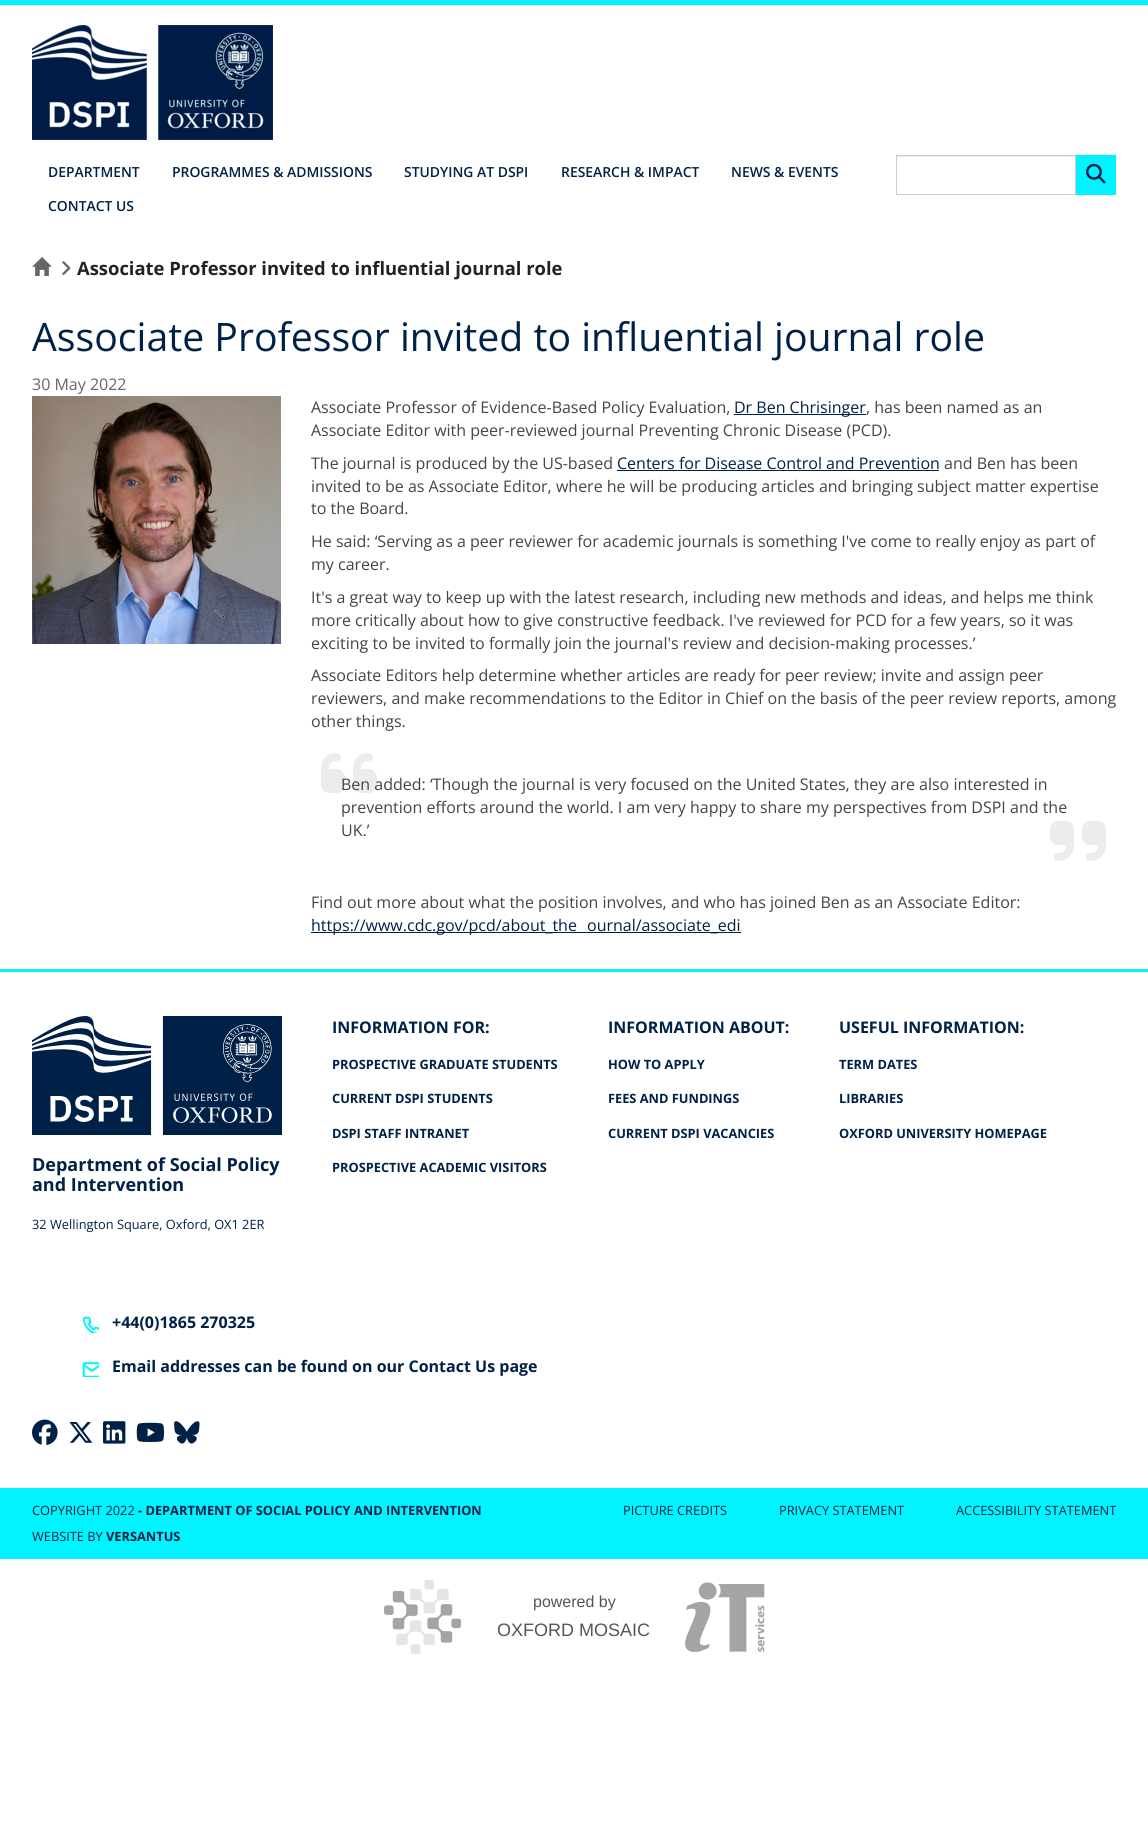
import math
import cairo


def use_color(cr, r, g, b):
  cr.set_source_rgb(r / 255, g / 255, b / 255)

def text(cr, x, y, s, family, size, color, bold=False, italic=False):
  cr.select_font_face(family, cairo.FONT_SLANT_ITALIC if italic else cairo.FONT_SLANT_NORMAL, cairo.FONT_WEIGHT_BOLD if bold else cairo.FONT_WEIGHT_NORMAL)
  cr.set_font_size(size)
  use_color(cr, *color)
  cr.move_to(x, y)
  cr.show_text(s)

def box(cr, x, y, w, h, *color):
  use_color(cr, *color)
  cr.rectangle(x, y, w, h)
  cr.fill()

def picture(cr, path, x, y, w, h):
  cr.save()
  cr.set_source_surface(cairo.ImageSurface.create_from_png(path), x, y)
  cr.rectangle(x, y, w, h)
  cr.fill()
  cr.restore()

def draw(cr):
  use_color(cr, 255, 255, 255)
  cr.paint()
  box(cr, 0, 0, 1148, 5, 0, 243, 255)
  picture(cr, "img_01.png", 32, 25, 241, 115)
  box(cr, 897, 156, 178, 1, 236, 236, 236)
  cr.rectangle(896.5, 155.5, 179, 39)
  use_color(cr, 204, 204, 204)
  cr.set_line_width(1)
  cr.stroke()
  box(cr, 1076, 155, 40, 40, 0, 243, 255)
  picture(cr, "img_02.png", 1086, 163, 20, 21)
  picture(cr, "img_03.png", 32, 257, 20, 19)
  picture(cr, "img_04.png", 62, 261, 9, 14)
  picture(cr, "img_05.png", 32, 396, 249, 248)
  box(cr, 734, 414, 132, 1, 0, 33, 71)
  box(cr, 617, 470, 322, 1, 0, 33, 71)
  picture(cr, "img_06.png", 321, 753, 56, 40)
  picture(cr, "img_07.png", 1050, 821, 56, 40)
  box(cr, 311, 932, 430, 1, 0, 33, 71)
  box(cr, 0, 969, 1148, 3, 0, 243, 255)
  picture(cr, "img_08.png", 32, 1016, 250, 119)
  picture(cr, "img_09.png", 82, 1316, 17, 17)
  picture(cr, "img_10.png", 82, 1362, 17, 15)
  picture(cr, "img_11.png", 32, 1419, 26, 26)
  picture(cr, "img_12.png", 69, 1422, 24, 21)
  picture(cr, "img_13.png", 103, 1421, 23, 23)
  picture(cr, "img_14.png", 136, 1422, 29, 20)
  picture(cr, "img_15.png", 174, 1421, 26, 23)
  box(cr, 0, 1488, 1148, 71, 0, 243, 255)
  picture(cr, "img_16.png", 384, 1580, 77, 74)
  picture(cr, "img_17.png", 685, 1582, 80, 70)
  text(cr, 48, 177, "DEPARTMENT", "Open Sans SemiBold", 13.9, (0, 33, 71))
  text(cr, 172, 177, "PROGRAMMES & ADMISSIONS", "Open Sans SemiBold", 13.9, (0, 33, 71))
  text(cr, 404, 177, "STUDYING AT DSPI", "Open Sans SemiBold", 13.9, (0, 33, 71))
  text(cr, 561, 177, "RESEARCH & IMPACT", "Open Sans SemiBold", 13.9, (0, 33, 71))
  text(cr, 731, 177, "NEWS & EVENTS", "Open Sans SemiBold", 13.9, (0, 33, 71))
  text(cr, 48, 211, "CONTACT US", "Open Sans SemiBold", 13.9, (0, 33, 71))
  text(cr, 77, 275, "Associate Professor invited to influential journal role", "Open Sans", 18.4, (34, 34, 34), bold=True)
  text(cr, 32, 351, "Associate Professor invited to influential journal role", "Open Sans", 39.2, (0, 33, 71))
  text(cr, 32, 390, "30 May 2022", "Open Sans", 16, (102, 102, 102))
  text(cr, 311, 413, "Associate Professor of Evidence-Based Policy Evaluation,", "Open Sans", 16, (68, 68, 68))
  text(cr, 734, 413, "Dr Ben Chrisinger", "Open Sans", 16, (0, 33, 71))
  text(cr, 866, 413, ", has been named as an", "Open Sans", 16, (68, 68, 68))
  text(cr, 311, 436, "Associate Editor with peer-reviewed journal Preventing Chronic Disease (PCD).", "Open Sans", 16, (68, 68, 68))
  text(cr, 311, 469, "The journal is produced by the US-based", "Open Sans", 16, (68, 68, 68))
  text(cr, 617, 469, "Centers for Disease Control and Prevention", "Open Sans", 16, (0, 33, 71))
  text(cr, 944, 469, "and Ben has been", "Open Sans", 16, (68, 68, 68))
  text(cr, 311, 492, "invited to be as Associate Editor, where he will be producing articles and bringing subject matter expertise", "Open Sans", 16, (68, 68, 68))
  text(cr, 311, 514, "to the Board.", "Open Sans", 16, (68, 68, 68))
  text(cr, 311, 547, "He said: ‘Serving as a peer reviewer for academic journals is something I've come to really enjoy as part of", "Open Sans", 16, (68, 68, 68))
  text(cr, 311, 570, "my career.", "Open Sans", 16, (68, 68, 68))
  text(cr, 311, 603, "It's a great way to keep up with the latest research, including new methods and ideas, and helps me think", "Open Sans", 16, (68, 68, 68))
  text(cr, 311, 626, "more critically about how to give constructive feedback. I've reviewed for PCD for a few years, so it was", "Open Sans", 16, (68, 68, 68))
  text(cr, 311, 649, "exciting to be invited to formally join the journal's review and decision-making processes.’", "Open Sans", 16, (68, 68, 68))
  text(cr, 311, 681, "Associate Editors help determine whether articles are ready for peer review; invite and assign peer", "Open Sans", 16, (68, 68, 68))
  text(cr, 311, 704, "reviewers, and make recommendations to the Editor in Chief on the basis of the peer review reports, among", "Open Sans", 16, (68, 68, 68))
  text(cr, 311, 727, "other things.", "Open Sans", 16, (68, 68, 68))
  text(cr, 341, 790, "Ben added: ‘Though the journal is very focused on the United States, they are also interested in", "Open Sans", 16, (68, 68, 68))
  text(cr, 341, 813, "prevention efforts around the world. I am very happy to share my perspectives from DSPI and the", "Open Sans", 16, (68, 68, 68))
  text(cr, 341, 836, "UK.’", "Open Sans", 16, (68, 68, 68))
  text(cr, 311, 908, "Find out more about what the position involves, and who has joined Ben as an Associate Editor:", "Open Sans", 16, (68, 68, 68))
  text(cr, 311, 931, "https://www.cdc.gov/pcd/about_the", "Open Sans", 16, (0, 33, 71))
  text(cr, 587, 931, "ournal/associate_edi", "Open Sans", 16, (0, 33, 71))
  text(cr, 332, 1033, "INFORMATION FOR:", "Open Sans", 16, (0, 33, 71), bold=True)
  text(cr, 332, 1069, "PROSPECTIVE GRADUATE STUDENTS", "Open Sans", 12.8, (0, 33, 71), bold=True)
  text(cr, 332, 1103, "CURRENT DSPI STUDENTS", "Open Sans", 12.8, (0, 33, 71), bold=True)
  text(cr, 332, 1138, "DSPI STAFF INTRANET", "Open Sans", 12.8, (0, 33, 71), bold=True)
  text(cr, 332, 1172, "PROSPECTIVE ACADEMIC VISITORS", "Open Sans", 12.8, (0, 33, 71), bold=True)
  text(cr, 608, 1033, "INFORMATION ABOUT:", "Open Sans", 16, (0, 33, 71), bold=True)
  text(cr, 608, 1069, "HOW TO APPLY", "Open Sans", 12.8, (0, 33, 71), bold=True)
  text(cr, 608, 1103, "FEES AND FUNDINGS", "Open Sans", 12.8, (0, 33, 71), bold=True)
  text(cr, 608, 1138, "CURRENT DSPI VACANCIES", "Open Sans", 12.8, (0, 33, 71), bold=True)
  text(cr, 839, 1033, "USEFUL INFORMATION:", "Open Sans", 16, (0, 33, 71), bold=True)
  text(cr, 839, 1069, "TERM DATES", "Open Sans", 12.8, (0, 33, 71), bold=True)
  text(cr, 839, 1103, "LIBRARIES", "Open Sans", 12.8, (0, 33, 71), bold=True)
  text(cr, 839, 1138, "OXFORD UNIVERSITY HOMEPAGE", "Open Sans", 12.8, (0, 33, 71), bold=True)
  text(cr, 32, 1171, "Department of Social Policy", "Open Sans", 18, (0, 33, 71), bold=True)
  text(cr, 32, 1191, "and Intervention", "Open Sans", 18, (0, 33, 71), bold=True)
  text(cr, 32, 1229, "32 Wellington Square, Oxford, OX1 2ER", "Open Sans", 12.8, (0, 33, 71))
  text(cr, 112, 1328, "+44(0)1865 270325", "Open Sans", 16, (0, 33, 71), bold=True)
  text(cr, 112, 1372, "Email addresses can be found on our Contact Us page", "Open Sans", 16, (0, 33, 71), bold=True)
  text(cr, 32, 1515, "COPYRIGHT 2022", "Open Sans", 12.8, (0, 33, 71))
  text(cr, 138, 1515, "- DEPARTMENT OF SOCIAL POLICY AND INTERVENTION", "Open Sans", 12.8, (0, 33, 71), bold=True)
  text(cr, 623, 1515, "PICTURE CREDITS", "Open Sans", 12.8, (0, 33, 71))
  text(cr, 779, 1515, "PRIVACY STATEMENT", "Open Sans", 12.8, (0, 33, 71))
  text(cr, 956, 1515, "ACCESSIBILITY STATEMENT", "Open Sans", 12.8, (0, 33, 71))
  text(cr, 32, 1541, "WEBSITE BY", "Open Sans", 12.8, (0, 33, 71))
  text(cr, 106, 1541, "VERSANTUS", "Open Sans", 12.8, (0, 33, 71), bold=True)
  text(cr, 533, 1607, "powered by", "Liberation Sans", 16, (85, 85, 85))
  text(cr, 497, 1636, "OXFORD MOSAIC", "Liberation Sans", 18, (85, 85, 85))


surface = cairo.ImageSurface(cairo.FORMAT_RGB24, 1148, 1832)
cr = cairo.Context(surface)
options = cairo.FontOptions()
options.set_hint_metrics(cairo.HINT_METRICS_OFF)
options.set_hint_style(cairo.HINT_STYLE_NONE)
cr.set_font_options(options)
cr.set_miter_limit(4)
draw(cr)
surface.write_to_png("out.png")
